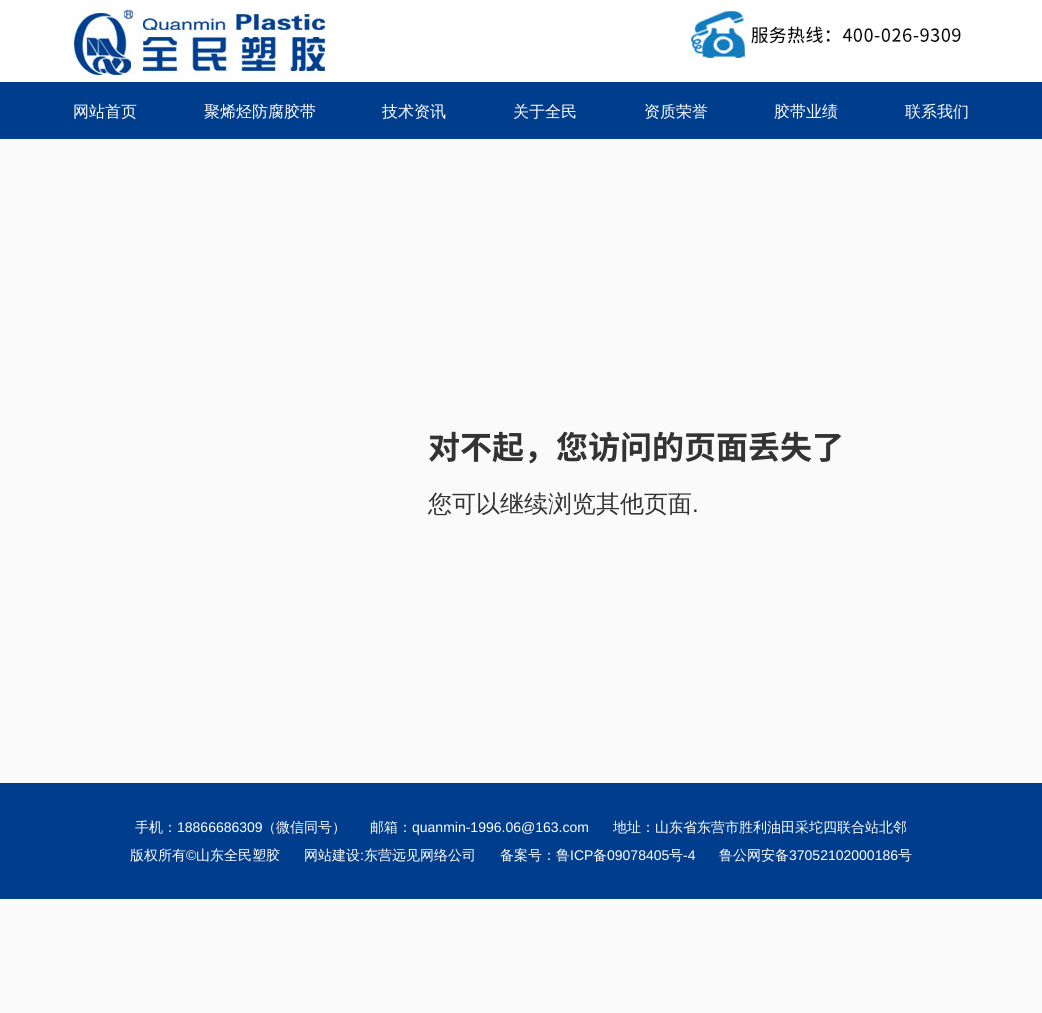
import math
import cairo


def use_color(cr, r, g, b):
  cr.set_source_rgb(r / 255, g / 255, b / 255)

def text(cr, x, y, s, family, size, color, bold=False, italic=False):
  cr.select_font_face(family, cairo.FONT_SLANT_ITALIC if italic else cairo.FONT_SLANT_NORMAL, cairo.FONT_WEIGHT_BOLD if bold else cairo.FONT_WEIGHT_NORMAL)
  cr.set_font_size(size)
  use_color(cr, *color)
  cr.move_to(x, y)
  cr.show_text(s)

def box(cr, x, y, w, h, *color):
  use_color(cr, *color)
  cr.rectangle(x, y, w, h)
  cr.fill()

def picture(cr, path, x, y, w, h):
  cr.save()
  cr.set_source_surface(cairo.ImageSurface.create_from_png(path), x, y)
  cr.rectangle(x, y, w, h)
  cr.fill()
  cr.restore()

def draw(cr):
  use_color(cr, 250, 250, 250)
  cr.paint()
  box(cr, 0, 0, 1042, 82, 255, 255, 255)
  picture(cr, "img_01.png", 73, 10, 252, 65)
  picture(cr, "img_02.png", 691, 10, 270, 48)
  box(cr, 0, 82, 1042, 57, 0, 62, 141)
  box(cr, 0, 783, 1042, 116, 0, 62, 141)
  text(cr, 73, 117, "网站首页", "WenQuanYi Zen Hei Medium", 16, (255, 255, 255))
  text(cr, 204, 117, "聚烯烃防腐胶带", "WenQuanYi Zen Hei Medium", 16, (255, 255, 255))
  text(cr, 382, 117, "技术资讯", "WenQuanYi Zen Hei Medium", 16, (255, 255, 255))
  text(cr, 513, 117, "关于全民", "WenQuanYi Zen Hei Medium", 16, (255, 255, 255))
  text(cr, 644, 117, "资质荣誉", "WenQuanYi Zen Hei Medium", 16, (255, 255, 255))
  text(cr, 774, 117, "胶带业绩", "WenQuanYi Zen Hei Medium", 16, (255, 255, 255))
  text(cr, 905, 117, "联系我们", "WenQuanYi Zen Hei Medium", 16, (255, 255, 255))
  text(cr, 428, 459, "对不起，您访问的页面丢失了", "Noto Sans SC", 32, (51, 51, 51), bold=True)
  text(cr, 428, 512, "您可以继续浏览其他页面", "WenQuanYi Zen Hei Medium", 24, (51, 51, 51))
  text(cr, 692, 512, ".", "Liberation Sans", 24, (51, 51, 51))
  text(cr, 135, 832, "手机：", "WenQuanYi Zen Hei Medium", 14, (255, 255, 255))
  text(cr, 177, 832, "18866686309", "Liberation Sans", 14, (255, 255, 255))
  text(cr, 262, 832, "（微信同号）", "WenQuanYi Zen Hei Medium", 14, (255, 255, 255))
  text(cr, 370, 832, "邮箱：", "WenQuanYi Zen Hei Medium", 14, (255, 255, 255))
  text(cr, 412, 832, "quanmin-1996.06@163.com", "Liberation Sans", 14, (255, 255, 255))
  text(cr, 613, 832, "地址：山东省东营市胜利油田采坨四联合站北邻", "WenQuanYi Zen Hei Medium", 14, (255, 255, 255))
  text(cr, 130, 860, "版权所有", "WenQuanYi Zen Hei Medium", 14, (255, 255, 255))
  text(cr, 186, 860, "©", "Liberation Sans", 14, (255, 255, 255))
  text(cr, 196, 860, "山东全民塑胶", "WenQuanYi Zen Hei Medium", 14, (255, 255, 255))
  text(cr, 304, 860, "网站建设", "WenQuanYi Zen Hei Medium", 14, (255, 255, 255))
  text(cr, 360, 860, ":", "Liberation Sans", 14, (255, 255, 255))
  text(cr, 364, 860, "东营远见网络公司", "WenQuanYi Zen Hei Medium", 14, (255, 255, 255))
  text(cr, 500, 860, "备案号：鲁", "WenQuanYi Zen Hei Medium", 14, (255, 255, 255))
  text(cr, 570, 860, "ICP", "Liberation Sans", 14, (255, 255, 255))
  text(cr, 593, 860, "备", "WenQuanYi Zen Hei Medium", 14, (255, 255, 255))
  text(cr, 607, 860, "09078405", "Liberation Sans", 14, (255, 255, 255))
  text(cr, 669, 860, "号", "WenQuanYi Zen Hei Medium", 14, (255, 255, 255))
  text(cr, 683, 860, "-4", "Liberation Sans", 14, (255, 255, 255))
  text(cr, 719, 860, "鲁公网安备", "WenQuanYi Zen Hei Medium", 14, (255, 255, 255))
  text(cr, 789, 860, "37052102000186", "Liberation Sans", 14, (255, 255, 255))
  text(cr, 898, 860, "号", "WenQuanYi Zen Hei Medium", 14, (255, 255, 255))


surface = cairo.ImageSurface(cairo.FORMAT_RGB24, 1042, 1013)
cr = cairo.Context(surface)
options = cairo.FontOptions()
options.set_hint_metrics(cairo.HINT_METRICS_OFF)
options.set_hint_style(cairo.HINT_STYLE_NONE)
cr.set_font_options(options)
cr.set_miter_limit(4)
draw(cr)
surface.write_to_png("out.png")
